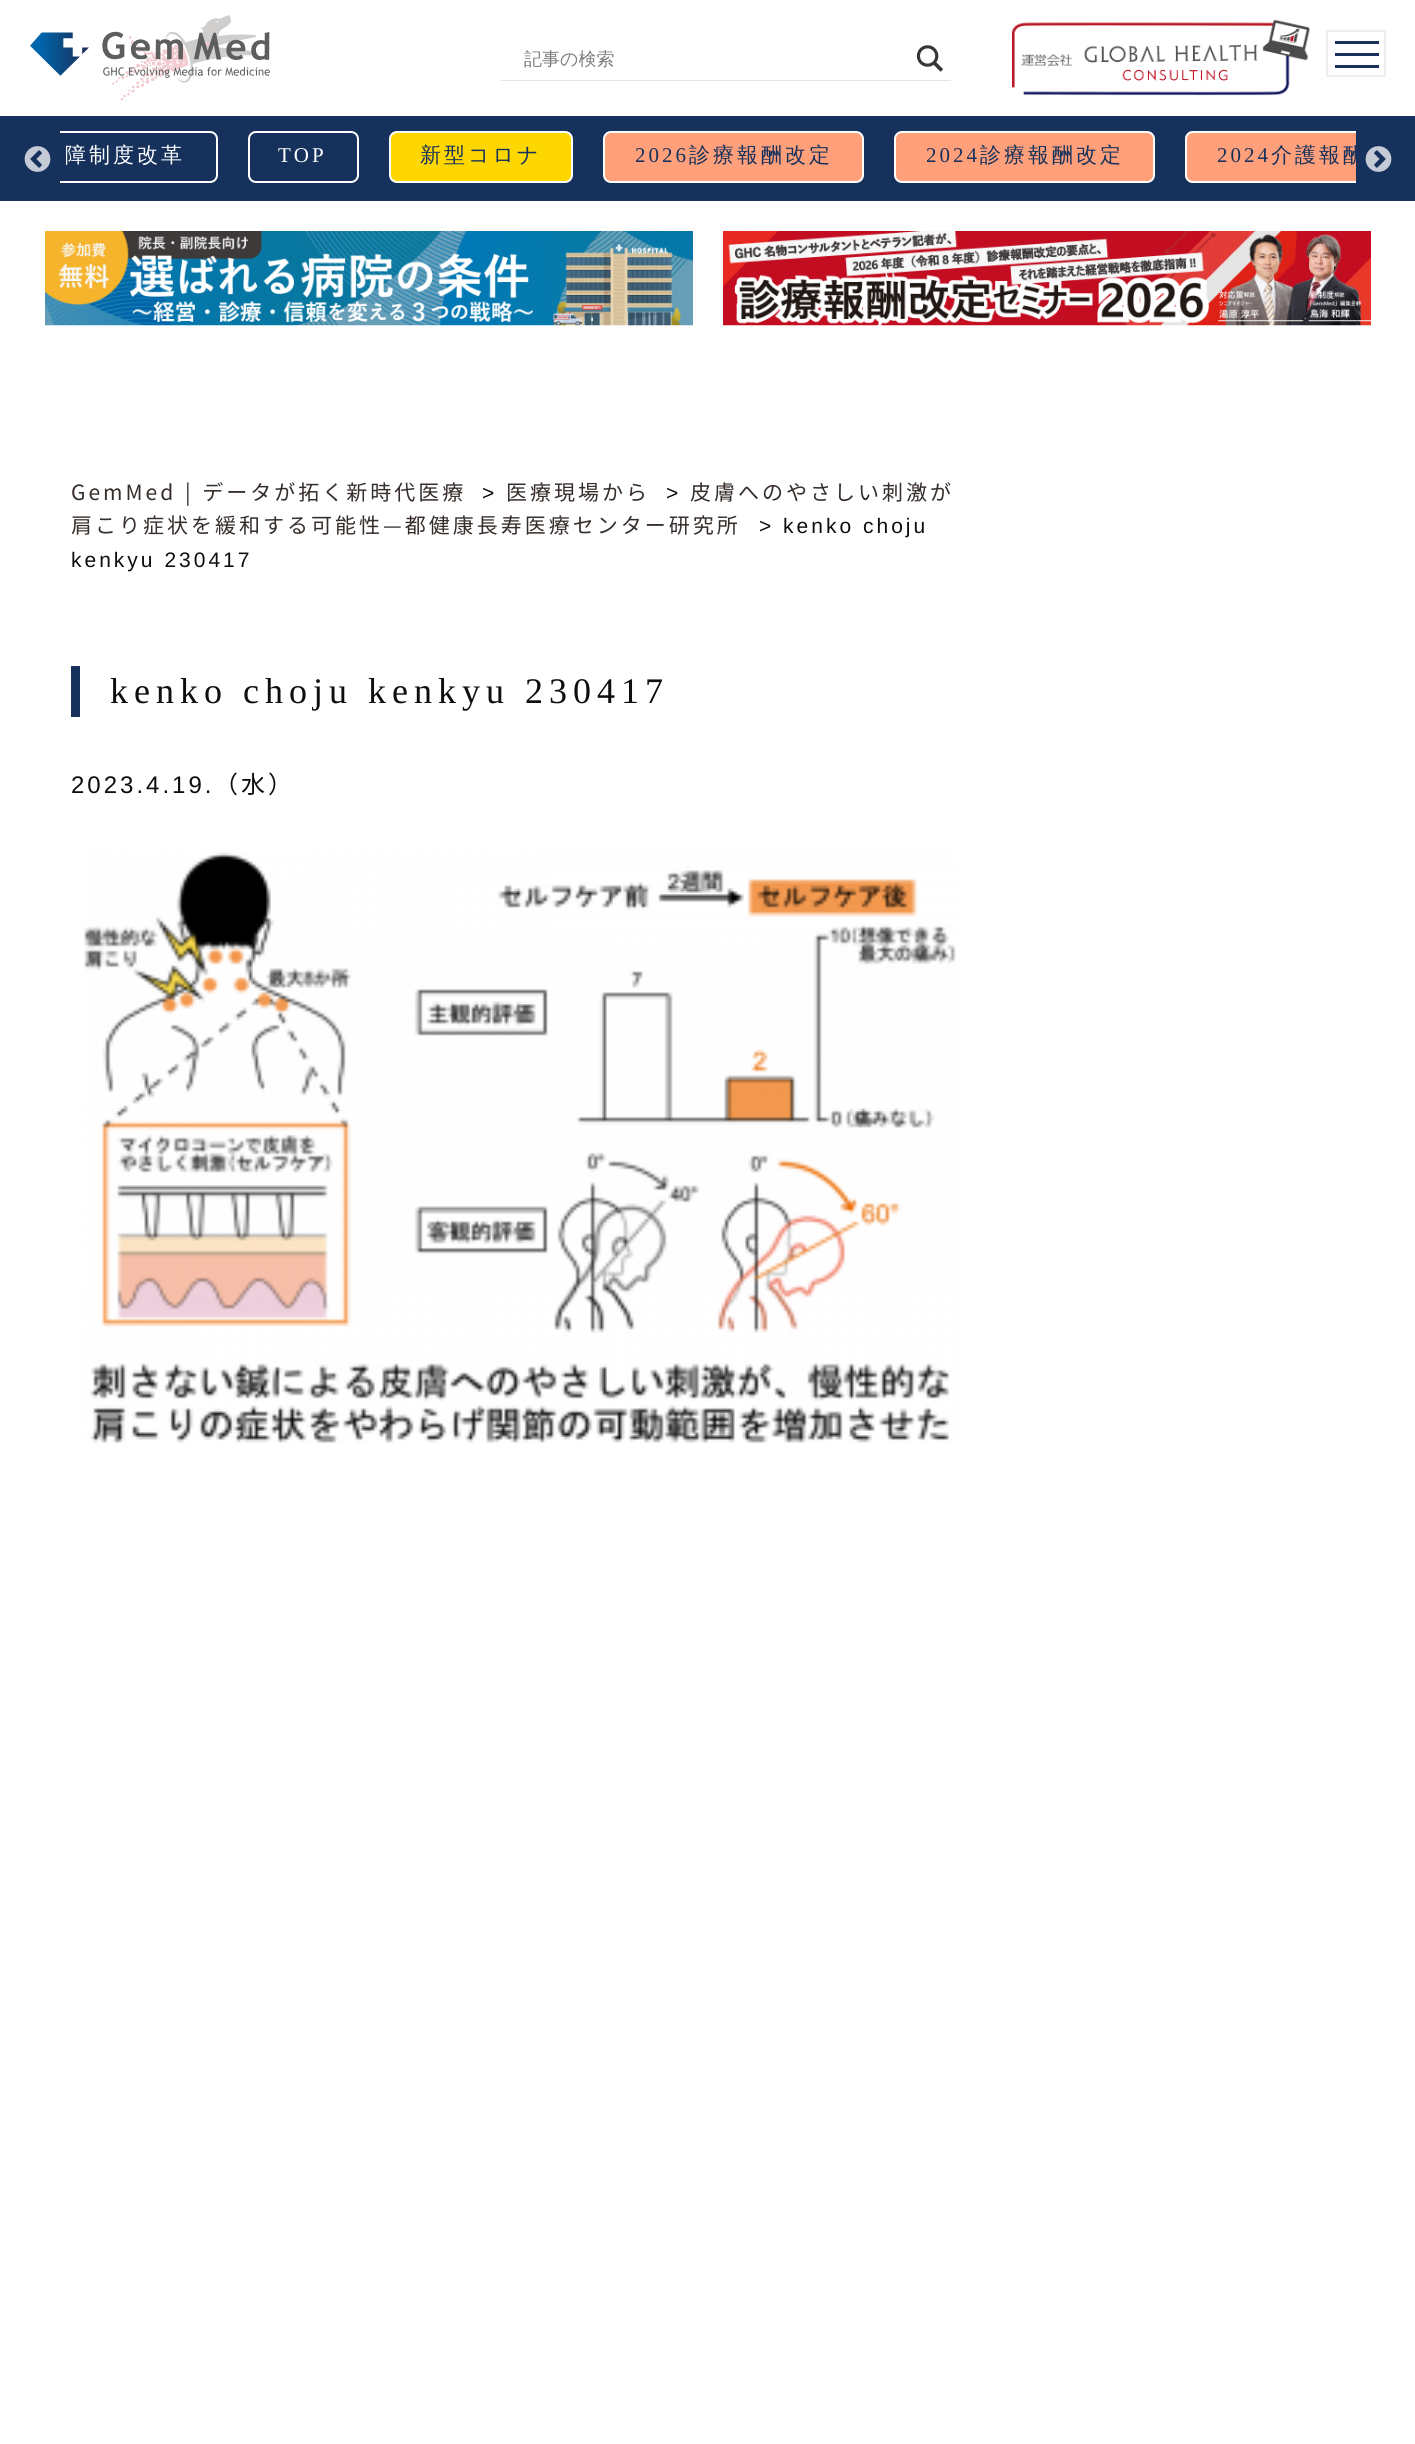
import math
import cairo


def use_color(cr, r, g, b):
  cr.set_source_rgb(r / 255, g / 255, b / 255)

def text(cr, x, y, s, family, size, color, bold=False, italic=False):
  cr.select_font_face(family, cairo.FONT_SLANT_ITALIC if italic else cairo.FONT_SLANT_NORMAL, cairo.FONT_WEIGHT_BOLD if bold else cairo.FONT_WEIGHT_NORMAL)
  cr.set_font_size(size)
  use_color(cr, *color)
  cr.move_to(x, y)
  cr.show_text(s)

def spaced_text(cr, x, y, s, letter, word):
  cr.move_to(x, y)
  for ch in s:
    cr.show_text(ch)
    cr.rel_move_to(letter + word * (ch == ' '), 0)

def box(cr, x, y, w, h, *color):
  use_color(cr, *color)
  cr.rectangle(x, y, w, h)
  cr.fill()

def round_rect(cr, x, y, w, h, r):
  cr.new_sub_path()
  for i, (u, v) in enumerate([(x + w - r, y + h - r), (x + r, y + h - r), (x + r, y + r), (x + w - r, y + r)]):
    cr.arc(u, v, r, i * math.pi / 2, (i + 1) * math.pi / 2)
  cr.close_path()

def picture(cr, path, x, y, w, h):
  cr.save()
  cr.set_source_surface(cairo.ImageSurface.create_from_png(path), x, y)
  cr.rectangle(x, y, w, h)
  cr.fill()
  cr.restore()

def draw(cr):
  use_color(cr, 255, 255, 255)
  cr.paint()
  picture(cr, "img_01.png", 30, 15, 240, 86)
  box(cr, 501, 80, 450, 1, 228, 228, 228)
  picture(cr, "img_02.png", 916, 45, 28, 27)
  picture(cr, "img_03.png", 1011, 19, 299, 77)
  cr.rectangle(1327, 31, 58, 45)
  use_color(cr, 238, 238, 238)
  cr.stroke()
  box(cr, 1335, 41, 44, 3, 21, 49, 92)
  box(cr, 1335, 53, 44, 3, 21, 49, 92)
  box(cr, 1335, 65, 44, 3, 21, 49, 92)
  box(cr, 0, 116, 1415, 85, 21, 49, 92)
  picture(cr, "img_04.png", 24, 146, 27, 26)
  cr.save()
  cr.rectangle(60, 131, 1296, 70)
  cr.clip()
  round_rect(cr, -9, 132, 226, 50, 7)
  use_color(cr, 255, 255, 255)
  cr.stroke()
  cr.restore()
  round_rect(cr, 249, 132, 109, 50, 7)
  use_color(cr, 255, 255, 255)
  cr.stroke()
  use_color(cr, 255, 215, 0)
  round_rect(cr, 390, 132, 182, 50, 7)
  cr.fill_preserve()
  use_color(cr, 255, 255, 255)
  cr.stroke()
  use_color(cr, 255, 160, 122)
  round_rect(cr, 604, 132, 259, 50, 7)
  cr.fill_preserve()
  use_color(cr, 255, 255, 255)
  cr.stroke()
  use_color(cr, 255, 160, 122)
  round_rect(cr, 895, 132, 259, 50, 7)
  cr.fill_preserve()
  use_color(cr, 255, 255, 255)
  cr.stroke()
  use_color(cr, 255, 160, 122)
  cr.new_path()
  cr.move_to(1193, 131)
  cr.line_to(1356, 131)
  cr.line_to(1356, 183)
  cr.line_to(1193, 183)
  cr.curve_to(1188.5, 183, 1185, 179.5, 1185, 175)
  cr.line_to(1185, 139)
  cr.curve_to(1185, 134.5, 1188.5, 131, 1193, 131)
  cr.close_path()
  cr.fill()
  cr.save()
  cr.rectangle(60, 131, 1296, 70)
  cr.clip()
  round_rect(cr, 1186, 132, 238, 50, 7)
  use_color(cr, 255, 255, 255)
  cr.stroke()
  cr.restore()
  picture(cr, "img_05.png", 1365, 146, 27, 26)
  picture(cr, "img_06.png", 45, 231, 648, 95)
  picture(cr, "img_07.png", 723, 231, 648, 95)
  box(cr, 71, 666, 9, 51, 21, 49, 92)
  picture(cr, "img_08.png", 84, 852, 873, 591)
  text(cr, 524, 65, "記事の検索", "WenQuanYi Zen Hei Medium", 18, (125, 125, 125))
  cr.set_font_size(21)
  use_color(cr, 255, 255, 255)
  spaced_text(cr, 65, 162, "障制度改革", 3, 0)
  cr.select_font_face("Liberation Serif")
  spaced_text(cr, 278, 162, "TOP", 3, 0)
  cr.select_font_face("WenQuanYi Zen Hei Medium")
  use_color(cr, 21, 49, 92)
  spaced_text(cr, 420, 162, "新型コロナ", 3, 0)
  cr.select_font_face("Liberation Serif")
  spaced_text(cr, 635, 162, "2026", 3, 0)
  cr.select_font_face("WenQuanYi Zen Hei Medium")
  spaced_text(cr, 689, 162, "診療報酬改定", 3, 0)
  cr.select_font_face("Liberation Serif")
  spaced_text(cr, 926, 162, "2024", 3, 0)
  cr.select_font_face("WenQuanYi Zen Hei Medium")
  spaced_text(cr, 980, 162, "診療報酬改定", 3, 0)
  cr.select_font_face("Liberation Serif")
  spaced_text(cr, 1217, 162, "2024", 3, 0)
  cr.save()
  cr.rectangle(60, 131, 1296, 70)
  cr.clip()
  cr.select_font_face("WenQuanYi Zen Hei Medium")
  spaced_text(cr, 1271, 162, "介護報酬", 3, 0)
  cr.restore()
  cr.select_font_face("Noto Sans JP")
  use_color(cr, 54, 46, 43)
  spaced_text(cr, 71, 500, "GemMed | データが拓く新時代医療", 3, 1)
  cr.select_font_face("Liberation Sans")
  use_color(cr, 14, 14, 14)
  spaced_text(cr, 482, 500, ">", 3, 0)
  cr.select_font_face("Noto Sans JP")
  use_color(cr, 54, 46, 43)
  spaced_text(cr, 506, 500, "医療現場から", 3, 0)
  cr.select_font_face("Liberation Sans")
  use_color(cr, 14, 14, 14)
  spaced_text(cr, 666, 500, ">", 3, 0)
  cr.select_font_face("Noto Sans JP")
  use_color(cr, 54, 46, 43)
  spaced_text(cr, 690, 500, "皮膚へのやさしい刺激が", 3, 0)
  spaced_text(cr, 71, 533, "肩こり症状を緩和する可能性—都健康長寿医療センター研究所", 3, 0)
  cr.select_font_face("Liberation Sans")
  use_color(cr, 14, 14, 14)
  spaced_text(cr, 759, 533, "> kenko choju", 3, 0)
  spaced_text(cr, 71, 567, "kenkyu 230417", 3, 0)
  cr.select_font_face("Liberation Serif")
  cr.set_font_size(36)
  spaced_text(cr, 110, 703, "kenko choju kenkyu 230417", 6, 0)
  cr.select_font_face("Liberation Sans")
  cr.set_font_size(24)
  spaced_text(cr, 71, 793, "2023.4.19.", 3, 0)
  cr.select_font_face("Noto Sans JP")
  spaced_text(cr, 214, 793, "（水）", 3, 0)


surface = cairo.ImageSurface(cairo.FORMAT_RGB24, 1415, 2444)
cr = cairo.Context(surface)
options = cairo.FontOptions()
options.set_hint_metrics(cairo.HINT_METRICS_OFF)
options.set_hint_style(cairo.HINT_STYLE_NONE)
cr.set_font_options(options)
cr.set_miter_limit(4)
draw(cr)
surface.write_to_png("out.png")
